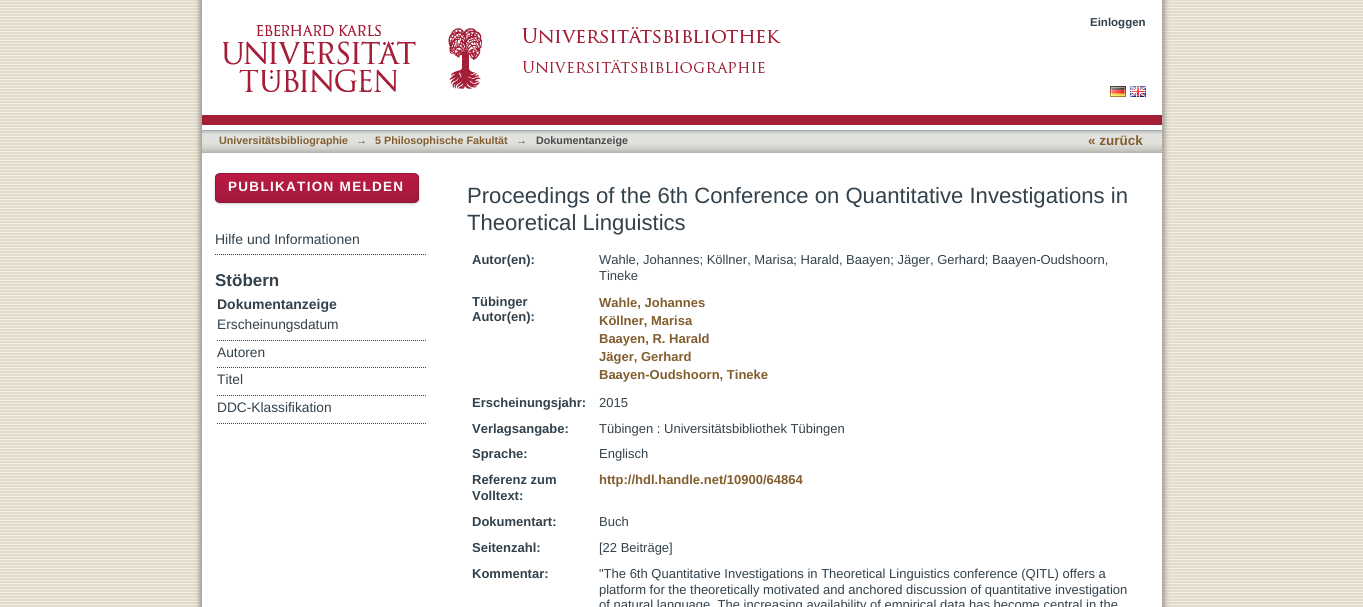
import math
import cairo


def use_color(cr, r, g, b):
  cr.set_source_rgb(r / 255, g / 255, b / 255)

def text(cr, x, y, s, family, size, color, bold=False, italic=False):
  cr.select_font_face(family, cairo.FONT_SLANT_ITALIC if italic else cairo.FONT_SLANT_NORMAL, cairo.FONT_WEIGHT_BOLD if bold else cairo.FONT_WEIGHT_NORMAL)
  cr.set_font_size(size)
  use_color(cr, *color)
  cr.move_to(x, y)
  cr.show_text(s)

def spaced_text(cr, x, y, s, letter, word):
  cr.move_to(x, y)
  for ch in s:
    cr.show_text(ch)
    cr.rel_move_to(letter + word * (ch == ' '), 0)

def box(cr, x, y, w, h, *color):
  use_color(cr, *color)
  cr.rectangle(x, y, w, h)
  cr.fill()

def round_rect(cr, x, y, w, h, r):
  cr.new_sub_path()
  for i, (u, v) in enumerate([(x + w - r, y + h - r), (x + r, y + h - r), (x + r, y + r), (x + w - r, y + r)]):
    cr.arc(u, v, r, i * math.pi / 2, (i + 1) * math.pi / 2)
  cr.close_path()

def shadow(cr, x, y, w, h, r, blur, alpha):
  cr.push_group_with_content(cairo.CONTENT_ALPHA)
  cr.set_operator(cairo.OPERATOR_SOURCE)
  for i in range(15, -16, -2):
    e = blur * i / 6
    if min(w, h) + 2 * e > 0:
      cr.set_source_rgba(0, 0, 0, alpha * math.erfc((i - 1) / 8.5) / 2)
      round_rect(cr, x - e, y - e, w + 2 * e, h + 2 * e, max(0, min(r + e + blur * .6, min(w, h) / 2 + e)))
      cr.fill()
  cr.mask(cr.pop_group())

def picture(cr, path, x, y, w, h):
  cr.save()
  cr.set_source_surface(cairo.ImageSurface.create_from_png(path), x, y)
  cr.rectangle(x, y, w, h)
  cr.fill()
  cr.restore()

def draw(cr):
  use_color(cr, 255, 255, 255)
  cr.paint()
  picture(cr, "img_01.png", 0, 0, 1363, 607)
  picture(cr, "img_02.png", 195, 0, 975, 607)
  box(cr, 202, 115, 960, 10, 165, 30, 55)
  picture(cr, "img_03.png", 223, 25, 259, 67)
  picture(cr, "img_04.png", 522, 27, 259, 46)
  picture(cr, "img_05.png", 202, 131, 960, 22)
  box(cr, 202, 130, 960, 1, 156, 172, 186)
  picture(cr, "img_06.png", 1110, 86, 16, 11)
  picture(cr, "img_07.png", 1130, 86, 16, 11)
  use_color(cr, 0, 0, 0)
  shadow(cr, 215, 174, 204, 30, 5, 1, 0.2)
  cr.save()
  round_rect(cr, 215, 173, 204, 30, 5)
  cr.clip()
  gradient = cairo.LinearGradient(317, 174, 317, 202)
  gradient.add_color_stop_rgba(0, 0.733, 0.102, 0.263, 1)
  gradient.add_color_stop_rgba(1, 0.635, 0.094, 0.231, 1)
  cr.set_source(gradient)
  cr.rectangle(215, 174, 204, 28)
  cr.fill()
  cr.restore()
  round_rect(cr, 215.5, 173.5, 203, 29, 4.5)
  use_color(cr, 144, 23, 53)
  cr.set_line_width(1)
  cr.stroke()
  cr.new_path()
  cr.move_to(215, 254.5)
  cr.line_to(427, 254.5)
  use_color(cr, 50, 65, 75)
  cr.set_dash([1, 1])
  cr.stroke()
  cr.new_path()
  cr.move_to(217, 340.5)
  cr.line_to(427, 340.5)
  cr.stroke()
  cr.new_path()
  cr.move_to(217, 367.5)
  cr.line_to(427, 367.5)
  cr.stroke()
  cr.new_path()
  cr.move_to(217, 395.5)
  cr.line_to(427, 395.5)
  cr.stroke()
  cr.new_path()
  cr.move_to(217, 423.5)
  cr.line_to(427, 423.5)
  cr.stroke()
  text(cr, 1090, 26, "Einloggen", "Liberation Sans", 11.5, (50, 65, 75), bold=True)
  text(cr, 219, 144, "Universitätsbibliographie", "Liberation Sans", 10.75, (130, 93, 45), bold=True)
  text(cr, 356, 144, "→", "Liberation Sans", 10.75, (72, 72, 72), bold=True)
  text(cr, 375, 144, "5 Philosophische Fakultät", "Liberation Sans", 10.75, (130, 93, 45), bold=True)
  text(cr, 516, 144, "→", "Liberation Sans", 10.75, (72, 72, 72), bold=True)
  text(cr, 536, 144, "Dokumentanzeige", "Liberation Sans", 10.75, (72, 72, 72), bold=True)
  text(cr, 1088, 145, "« zurück", "Liberation Sans", 13.5, (130, 93, 45), bold=True)
  use_color(cr, 255, 255, 255)
  spaced_text(cr, 228, 191, "PUBLIKATION MELDEN", 1.3, 0)
  text(cr, 215, 244, "Hilfe und Informationen", "Liberation Sans", 14, (50, 65, 75))
  text(cr, 215, 286, "Stöbern", "Liberation Sans", 17, (50, 65, 75), bold=True)
  text(cr, 217, 309, "Dokumentanzeige", "Liberation Sans", 14, (50, 65, 75), bold=True)
  text(cr, 217, 329, "Erscheinungsdatum", "Liberation Sans", 13.75, (50, 65, 75))
  text(cr, 217, 357, "Autoren", "Liberation Sans", 13.75, (50, 65, 75))
  text(cr, 217, 384, "Titel", "Liberation Sans", 13.75, (50, 65, 75))
  text(cr, 217, 412, "DDC-Klassifikation", "Liberation Sans", 13.75, (50, 65, 75))
  text(cr, 467, 203, "Proceedings of the 6th Conference on Quantitative Investigations in", "Liberation Sans", 22.1, (50, 65, 75))
  text(cr, 467, 230, "Theoretical Linguistics", "Liberation Sans", 22.1, (50, 65, 75))
  text(cr, 472, 264, "Autor(en):", "Liberation Sans", 13, (50, 65, 75), bold=True)
  text(cr, 599, 264, "Wahle, Johannes; Köllner, Marisa; Harald, Baayen; Jäger, Gerhard; Baayen-Oudshoorn,", "Liberation Sans", 13, (50, 65, 75))
  text(cr, 599, 280, "Tineke", "Liberation Sans", 13, (50, 65, 75))
  text(cr, 472, 306, "Tübinger", "Liberation Sans", 13, (50, 65, 75), bold=True)
  text(cr, 472, 321, "Autor(en):", "Liberation Sans", 13, (50, 65, 75), bold=True)
  text(cr, 599, 307, "Wahle, Johannes", "Liberation Sans", 13, (130, 93, 45), bold=True)
  text(cr, 599, 325, "Köllner, Marisa", "Liberation Sans", 13, (130, 93, 45), bold=True)
  text(cr, 599, 343, "Baayen, R. Harald", "Liberation Sans", 13, (130, 93, 45), bold=True)
  text(cr, 599, 361, "Jäger, Gerhard", "Liberation Sans", 13, (130, 93, 45), bold=True)
  text(cr, 599, 379, "Baayen-Oudshoorn, Tineke", "Liberation Sans", 13, (130, 93, 45), bold=True)
  text(cr, 472, 407, "Erscheinungsjahr:", "Liberation Sans", 13, (50, 65, 75), bold=True)
  text(cr, 599, 407, "2015", "Liberation Sans", 13, (50, 65, 75))
  text(cr, 472, 433, "Verlagsangabe:", "Liberation Sans", 13, (50, 65, 75), bold=True)
  text(cr, 599, 433, "Tübingen : Universitätsbibliothek Tübingen", "Liberation Sans", 13, (50, 65, 75))
  text(cr, 472, 458, "Sprache:", "Liberation Sans", 13, (50, 65, 75), bold=True)
  text(cr, 599, 458, "Englisch", "Liberation Sans", 13, (50, 65, 75))
  text(cr, 472, 484, "Referenz zum", "Liberation Sans", 13, (50, 65, 75), bold=True)
  text(cr, 472, 500, "Volltext:", "Liberation Sans", 13, (50, 65, 75), bold=True)
  text(cr, 599, 484, "http://hdl.handle.net/10900/64864", "Liberation Sans", 13, (130, 93, 45), bold=True)
  text(cr, 472, 526, "Dokumentart:", "Liberation Sans", 13, (50, 65, 75), bold=True)
  text(cr, 599, 526, "Buch", "Liberation Sans", 13, (50, 65, 75))
  text(cr, 472, 552, "Seitenzahl:", "Liberation Sans", 13, (50, 65, 75), bold=True)
  text(cr, 599, 552, "[22 Beiträge]", "Liberation Sans", 13, (50, 65, 75))
  text(cr, 472, 578, "Kommentar:", "Liberation Sans", 13, (50, 65, 75), bold=True)
  text(cr, 599, 578, "\"The 6th Quantitative Investigations in Theoretical Linguistics conference (QITL) offers a", "Liberation Sans", 13, (50, 65, 75))
  text(cr, 599, 594, "platform for the theoretically motivated and anchored discussion of quantitative investigation", "Liberation Sans", 13, (50, 65, 75))
  text(cr, 599, 609, "of natural language. The increasing availability of empirical data has become central in the", "Liberation Sans", 13, (50, 65, 75))


surface = cairo.ImageSurface(cairo.FORMAT_RGB24, 1363, 607)
cr = cairo.Context(surface)
options = cairo.FontOptions()
options.set_hint_metrics(cairo.HINT_METRICS_OFF)
options.set_hint_style(cairo.HINT_STYLE_NONE)
cr.set_font_options(options)
cr.set_miter_limit(4)
draw(cr)
surface.write_to_png("out.png")
